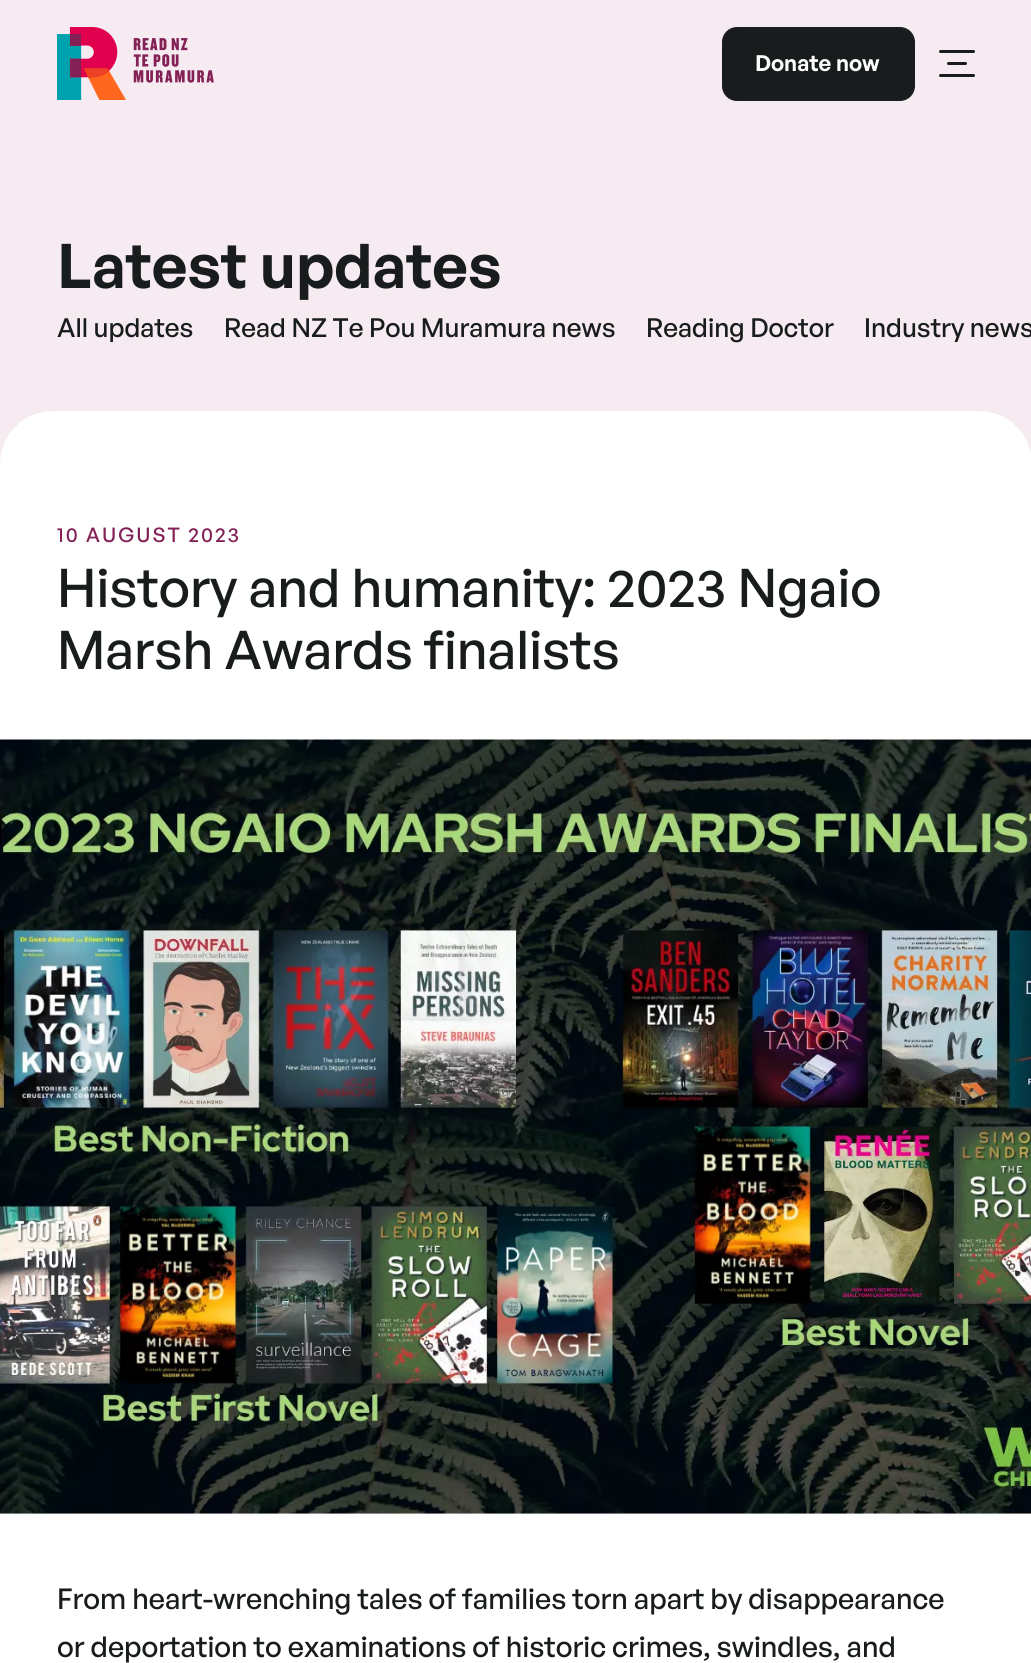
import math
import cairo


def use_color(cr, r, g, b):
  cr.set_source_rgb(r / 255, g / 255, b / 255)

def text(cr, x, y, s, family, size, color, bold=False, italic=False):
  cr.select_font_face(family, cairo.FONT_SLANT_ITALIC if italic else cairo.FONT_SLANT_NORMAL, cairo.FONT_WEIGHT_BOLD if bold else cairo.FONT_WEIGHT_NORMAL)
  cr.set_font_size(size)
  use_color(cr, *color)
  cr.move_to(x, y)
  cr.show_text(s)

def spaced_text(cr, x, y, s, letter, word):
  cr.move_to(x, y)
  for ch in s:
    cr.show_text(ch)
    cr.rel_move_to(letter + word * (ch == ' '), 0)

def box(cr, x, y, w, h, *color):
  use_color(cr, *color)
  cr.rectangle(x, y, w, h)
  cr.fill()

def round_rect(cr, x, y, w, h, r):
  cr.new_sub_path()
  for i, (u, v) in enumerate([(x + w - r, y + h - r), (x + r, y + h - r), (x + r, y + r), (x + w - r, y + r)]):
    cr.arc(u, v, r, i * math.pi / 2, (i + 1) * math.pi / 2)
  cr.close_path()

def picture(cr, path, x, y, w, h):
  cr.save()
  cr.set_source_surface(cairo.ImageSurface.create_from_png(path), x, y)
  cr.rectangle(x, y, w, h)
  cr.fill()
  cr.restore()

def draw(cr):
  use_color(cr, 246, 235, 241)
  cr.paint()
  picture(cr, "img_01.png", 57, 27, 157, 73)
  use_color(cr, 25, 28, 29)
  round_rect(cr, 722, 27, 193, 74, 15)
  cr.fill()
  round_rect(cr, 939, 50, 36, 3, 1.5)
  cr.fill()
  round_rect(cr, 947, 62, 20, 3, 1.5)
  cr.fill()
  round_rect(cr, 939, 74, 36, 3, 1.5)
  cr.fill()
  use_color(cr, 255, 255, 255)
  round_rect(cr, 0, 411, 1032, 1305, 53)
  cr.fill()
  box(cr, 0, 1513, 1031, 1, 230, 230, 230)
  picture(cr, "img_02.png", 0, 739, 1031, 775)
  text(cr, 755, 71, "Donate now", "General Sans SemiBold", 22, (255, 255, 255))
  text(cr, 57, 288, "Latest updates", "General Sans SemiBold", 61.5, (25, 28, 29))
  text(cr, 57, 337, "All updates", "General Sans Medium", 26.1, (25, 28, 29))
  text(cr, 224, 337, "Read NZ Te Pou Muramura news", "General Sans Medium", 26.1, (25, 28, 29))
  text(cr, 646, 337, "Reading Doctor", "General Sans Medium", 26.1, (25, 28, 29))
  text(cr, 864, 337, "Industry news", "General Sans Medium", 26.1, (25, 28, 29))
  cr.set_font_size(20.1)
  use_color(cr, 131, 33, 86)
  spaced_text(cr, 57, 542, "10 AUGUST 2023", 2, 0)
  text(cr, 57, 607, "History and humanity: 2023 Ngaio", "General Sans Medium", 53.25, (25, 28, 29))
  text(cr, 57, 669, "Marsh Awards finalists", "General Sans Medium", 53.25, (25, 28, 29))
  text(cr, 57, 1609, "From heart-wrenching tales of families torn apart by disappearance", "General Sans Medium", 28.6, (25, 28, 29))
  text(cr, 57, 1657, "or deportation to examinations of historic crimes, swindles, and", "General Sans Medium", 28.6, (25, 28, 29))


surface = cairo.ImageSurface(cairo.FORMAT_RGB24, 1031, 1663)
cr = cairo.Context(surface)
options = cairo.FontOptions()
options.set_hint_metrics(cairo.HINT_METRICS_OFF)
options.set_hint_style(cairo.HINT_STYLE_NONE)
cr.set_font_options(options)
cr.set_miter_limit(4)
draw(cr)
surface.write_to_png("out.png")
